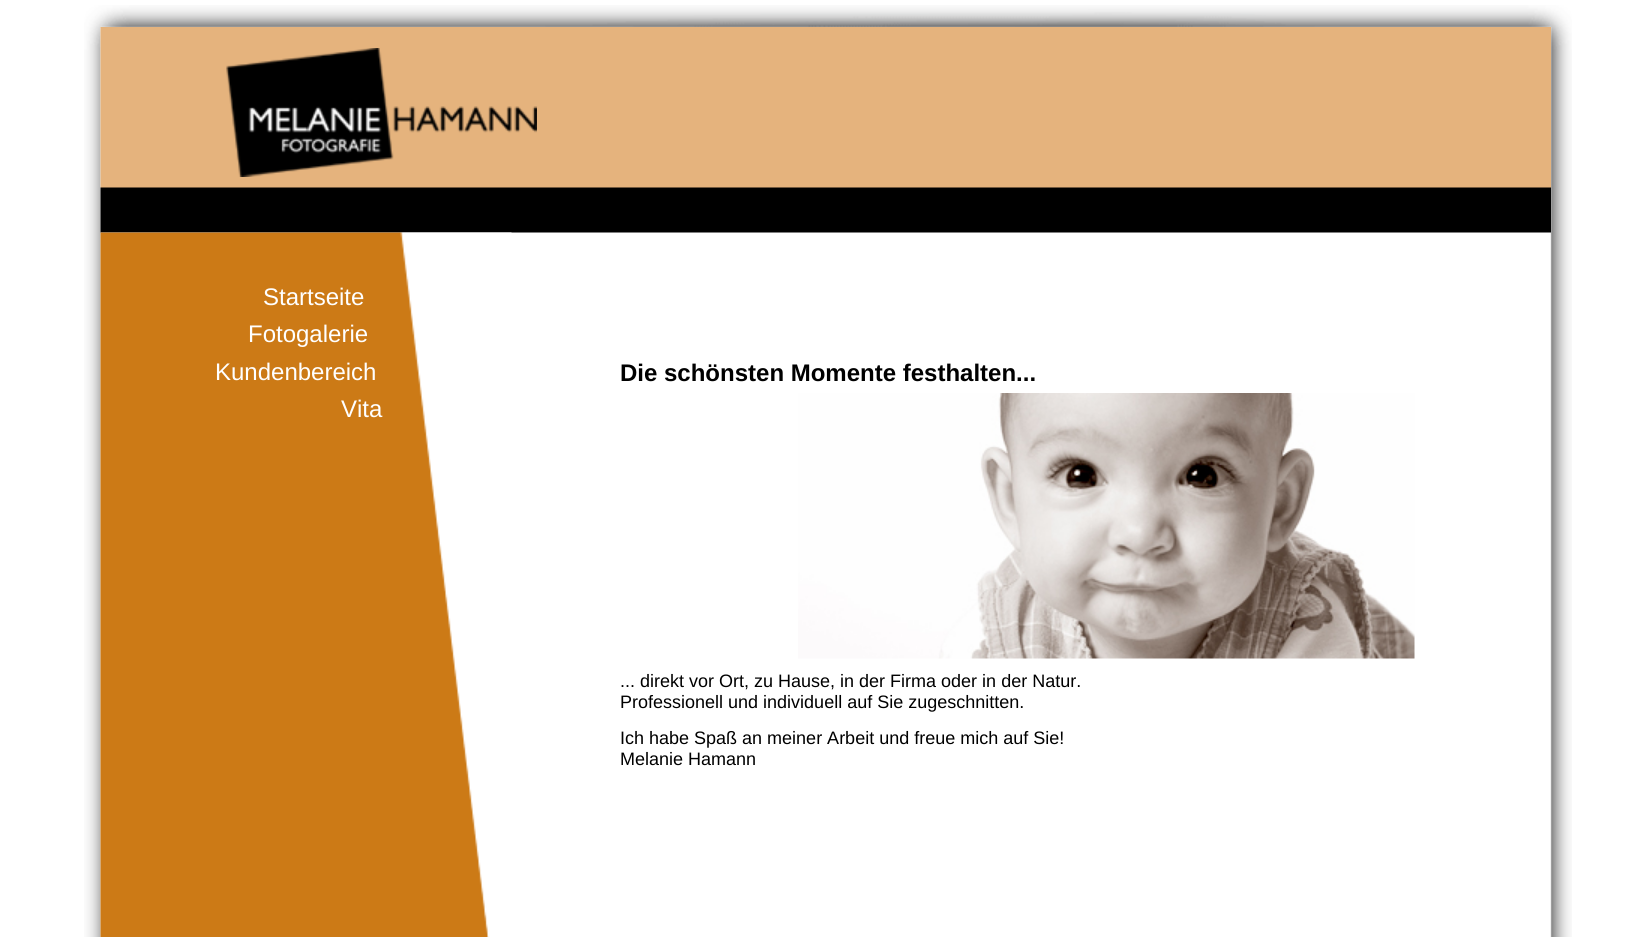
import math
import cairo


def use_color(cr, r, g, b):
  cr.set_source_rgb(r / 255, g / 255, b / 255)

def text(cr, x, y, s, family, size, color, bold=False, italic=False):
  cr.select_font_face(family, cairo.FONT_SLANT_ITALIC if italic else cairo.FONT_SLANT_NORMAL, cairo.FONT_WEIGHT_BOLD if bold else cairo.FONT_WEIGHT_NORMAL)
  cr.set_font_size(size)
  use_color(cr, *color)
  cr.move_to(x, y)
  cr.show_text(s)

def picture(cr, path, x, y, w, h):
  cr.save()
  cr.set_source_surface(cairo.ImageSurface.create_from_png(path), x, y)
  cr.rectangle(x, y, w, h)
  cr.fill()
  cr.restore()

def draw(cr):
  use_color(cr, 255, 255, 255)
  cr.paint()
  picture(cr, "img_01.png", 84, 5, 1488, 932)
  picture(cr, "img_02.png", 100, 27, 1451, 206)
  picture(cr, "img_03.png", 226, 48, 311, 129)
  picture(cr, "img_04.png", 100, 232, 412, 705)
  picture(cr, "img_05.png", 798, 393, 617, 266)
  text(cr, 263, 305, "Startseite", "Liberation Sans", 24, (255, 255, 255))
  text(cr, 248, 342, "Fotogalerie", "Liberation Sans", 24, (255, 255, 255))
  text(cr, 215, 380, "Kundenbereich", "Liberation Sans", 24, (255, 255, 255))
  text(cr, 341, 417, "Vita", "Liberation Sans", 24, (255, 255, 255))
  text(cr, 620, 381, "Die schönsten Momente festhalten...", "Liberation Sans", 24, (0, 0, 0), bold=True)
  text(cr, 620, 687, "... direkt vor Ort, zu Hause, in der Firma oder in der Natur.", "Liberation Sans", 18, (0, 0, 0))
  text(cr, 620, 708, "Professionell und individuell auf Sie zugeschnitten.", "Liberation Sans", 18, (0, 0, 0))
  text(cr, 620, 744, "Ich habe Spaß an meiner Arbeit und freue mich auf Sie!", "Liberation Sans", 18, (0, 0, 0))
  text(cr, 620, 765, "Melanie Hamann", "Liberation Sans", 18, (0, 0, 0))


surface = cairo.ImageSurface(cairo.FORMAT_RGB24, 1650, 937)
cr = cairo.Context(surface)
options = cairo.FontOptions()
options.set_hint_metrics(cairo.HINT_METRICS_OFF)
options.set_hint_style(cairo.HINT_STYLE_NONE)
cr.set_font_options(options)
cr.set_miter_limit(4)
draw(cr)
surface.write_to_png("out.png")
